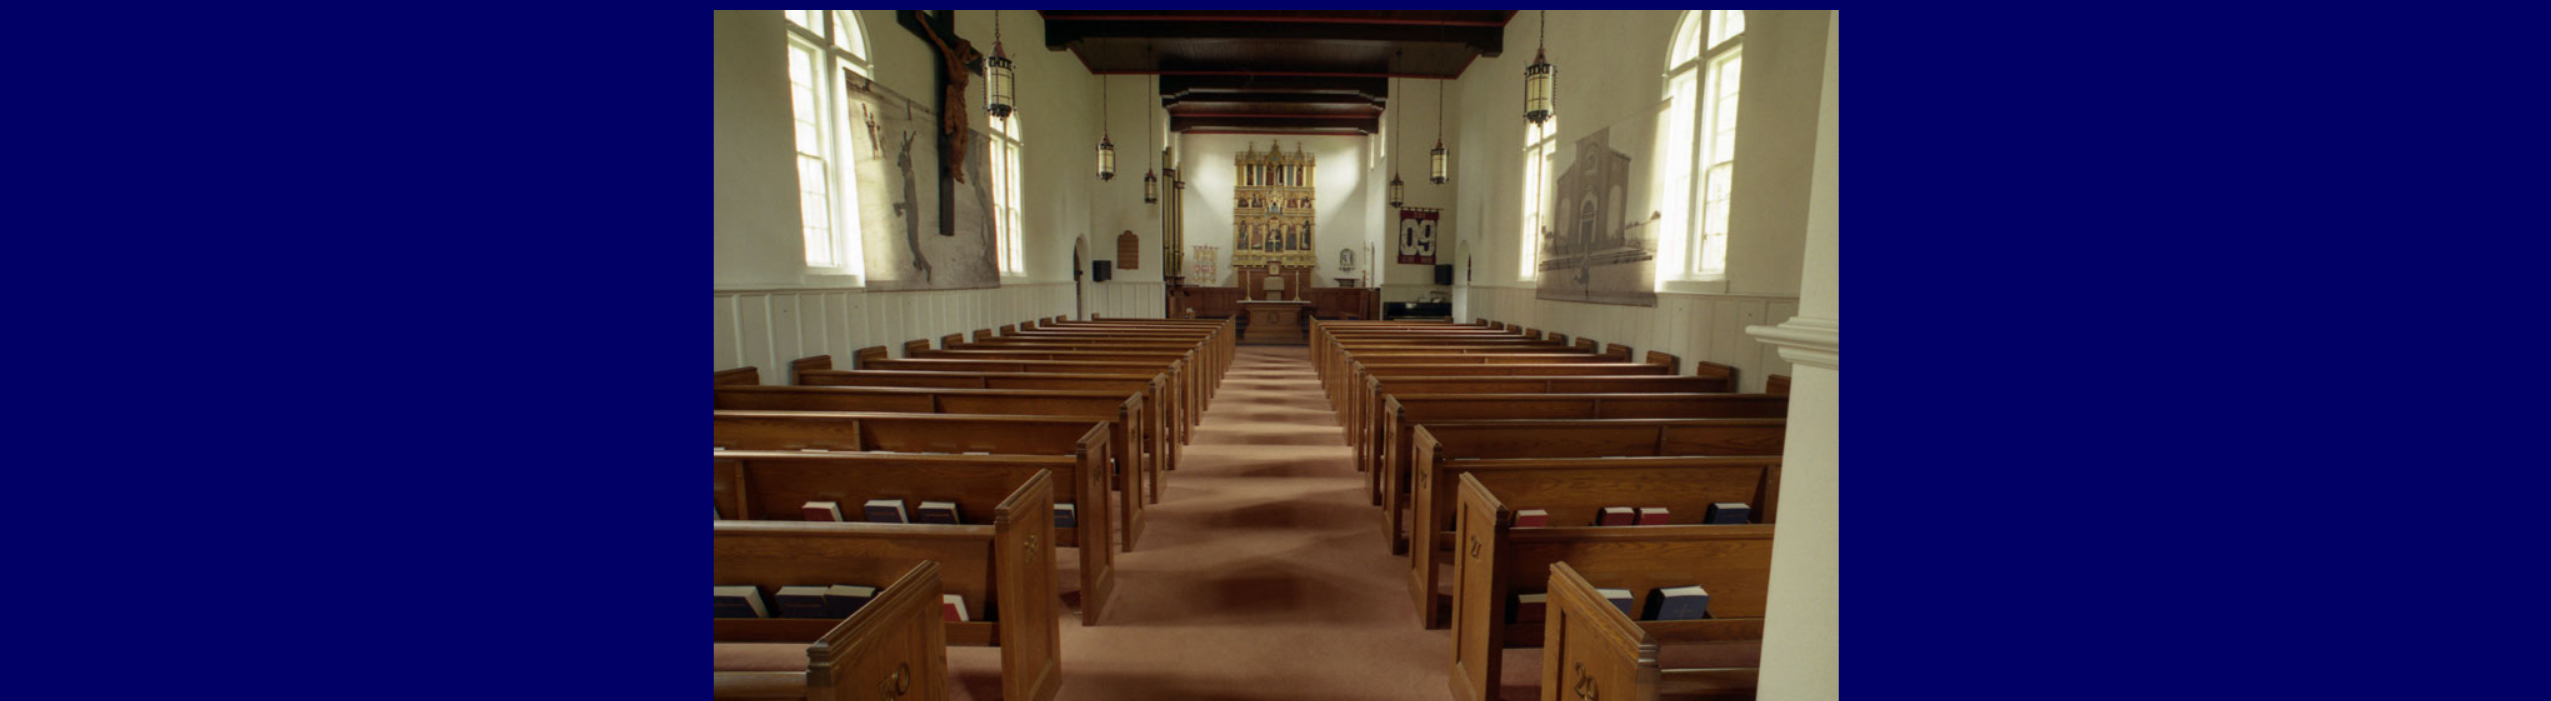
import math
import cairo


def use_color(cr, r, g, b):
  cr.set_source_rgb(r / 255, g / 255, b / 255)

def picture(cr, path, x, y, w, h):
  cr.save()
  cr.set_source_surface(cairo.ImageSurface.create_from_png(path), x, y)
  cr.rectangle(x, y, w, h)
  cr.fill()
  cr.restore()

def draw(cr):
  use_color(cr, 0, 0, 102)
  cr.paint()
  picture(cr, "img_01.png", 713, 10, 1126, 691)


surface = cairo.ImageSurface(cairo.FORMAT_RGB24, 2551, 701)
cr = cairo.Context(surface)
options = cairo.FontOptions()
options.set_hint_metrics(cairo.HINT_METRICS_OFF)
options.set_hint_style(cairo.HINT_STYLE_NONE)
cr.set_font_options(options)
cr.set_miter_limit(4)
draw(cr)
surface.write_to_png("out.png")
